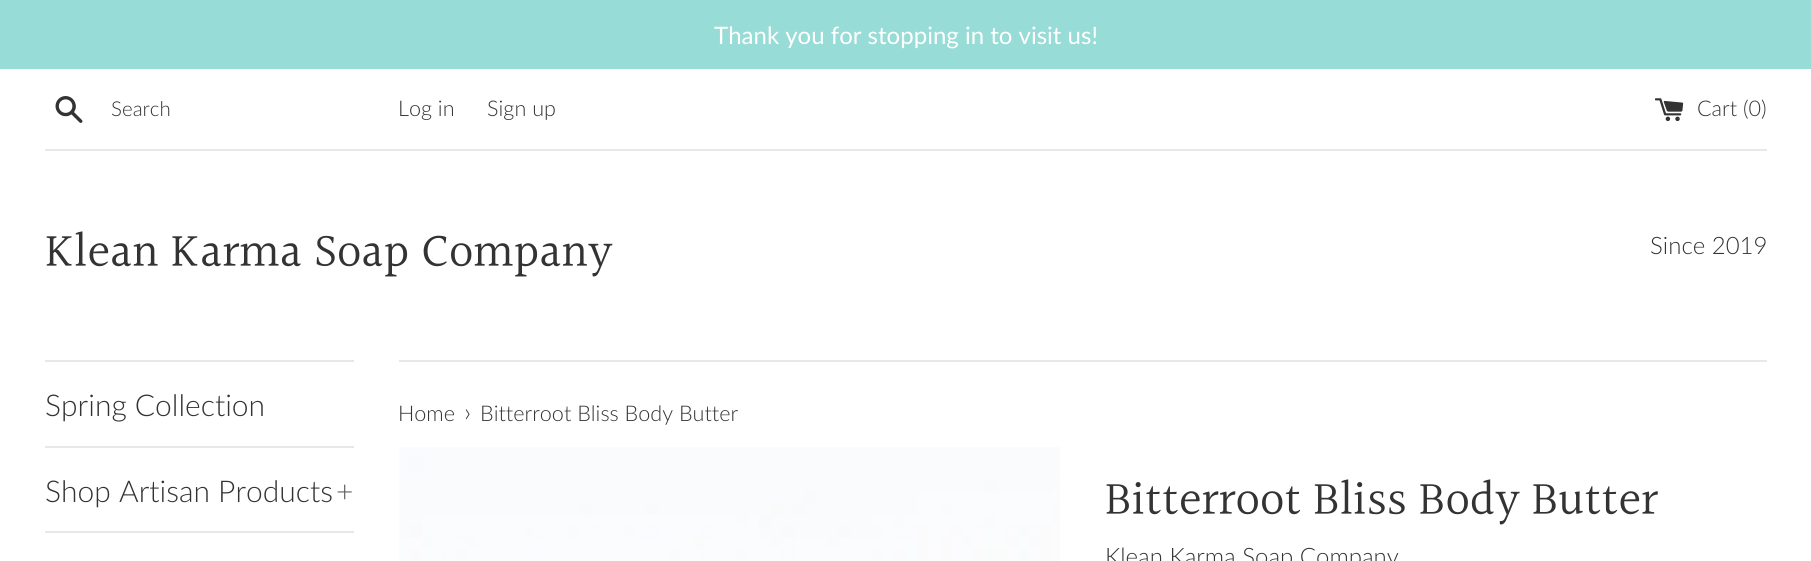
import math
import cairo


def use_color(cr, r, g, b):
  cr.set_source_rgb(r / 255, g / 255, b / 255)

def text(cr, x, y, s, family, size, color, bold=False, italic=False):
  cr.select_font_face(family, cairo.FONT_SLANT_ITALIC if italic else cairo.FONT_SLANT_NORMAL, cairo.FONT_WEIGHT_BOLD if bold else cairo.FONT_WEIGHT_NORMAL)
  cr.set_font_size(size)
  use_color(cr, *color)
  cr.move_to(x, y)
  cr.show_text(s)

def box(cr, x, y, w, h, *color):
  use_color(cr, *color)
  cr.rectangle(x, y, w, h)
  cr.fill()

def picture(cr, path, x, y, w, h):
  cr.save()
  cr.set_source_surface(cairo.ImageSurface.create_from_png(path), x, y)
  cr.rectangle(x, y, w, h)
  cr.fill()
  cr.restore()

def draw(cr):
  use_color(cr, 255, 255, 255)
  cr.paint()
  box(cr, 0, 0, 1811, 69, 151, 220, 214)
  picture(cr, "img_01.png", 55, 96, 28, 27)
  picture(cr, "img_02.png", 1655, 98, 29, 24)
  box(cr, 45, 149, 1722, 2, 232, 232, 232)
  box(cr, 45, 360, 309, 2, 232, 232, 232)
  box(cr, 45, 446, 309, 2, 232, 232, 232)
  box(cr, 45, 531, 309, 2, 232, 232, 232)
  box(cr, 399, 360, 1368, 2, 232, 232, 232)
  picture(cr, "img_03.png", 399, 447, 661, 114)
  text(cr, 714, 44, "Thank you for stopping in to visit us!", "Lato", 24, (255, 255, 255))
  text(cr, 111, 116, "Search", "Lato Light", 20.5, (51, 51, 51))
  text(cr, 398, 116, "Log in", "Lato Light", 21.6, (51, 51, 51))
  text(cr, 487, 116, "Sign up", "Lato Light", 21.6, (51, 51, 51))
  text(cr, 1697, 116, "Cart (0)", "Lato Light", 21.6, (51, 51, 51))
  text(cr, 45, 268, "Klean Karma Soap Company", "Halant", 48, (51, 51, 51))
  text(cr, 1650, 254, "Since 2019", "Lato Light", 24, (51, 51, 51))
  text(cr, 45, 416, "Spring Collection", "Lato Light", 30, (51, 51, 51))
  text(cr, 45, 502, "Shop Artisan Products", "Lato Light", 30, (51, 51, 51))
  text(cr, 336, 502, "+", "Lato Light", 30, (92, 92, 92))
  text(cr, 398, 421, "Home", "Lato Light", 21.6, (51, 51, 51))
  text(cr, 464, 421, "›", "Lato Light", 26, (51, 51, 51))
  text(cr, 480, 421, "Bitterroot Bliss Body Butter", "Lato Light", 21.6, (51, 51, 51))
  text(cr, 1105, 516, "Bitterroot Bliss Body Butter", "Halant", 48, (51, 51, 51))
  text(cr, 1105, 565, "Klean Karma Soap Company", "Lato Light", 24, (51, 51, 51))


surface = cairo.ImageSurface(cairo.FORMAT_RGB24, 1811, 561)
cr = cairo.Context(surface)
options = cairo.FontOptions()
options.set_hint_metrics(cairo.HINT_METRICS_OFF)
options.set_hint_style(cairo.HINT_STYLE_NONE)
cr.set_font_options(options)
cr.set_miter_limit(4)
draw(cr)
surface.write_to_png("out.png")
